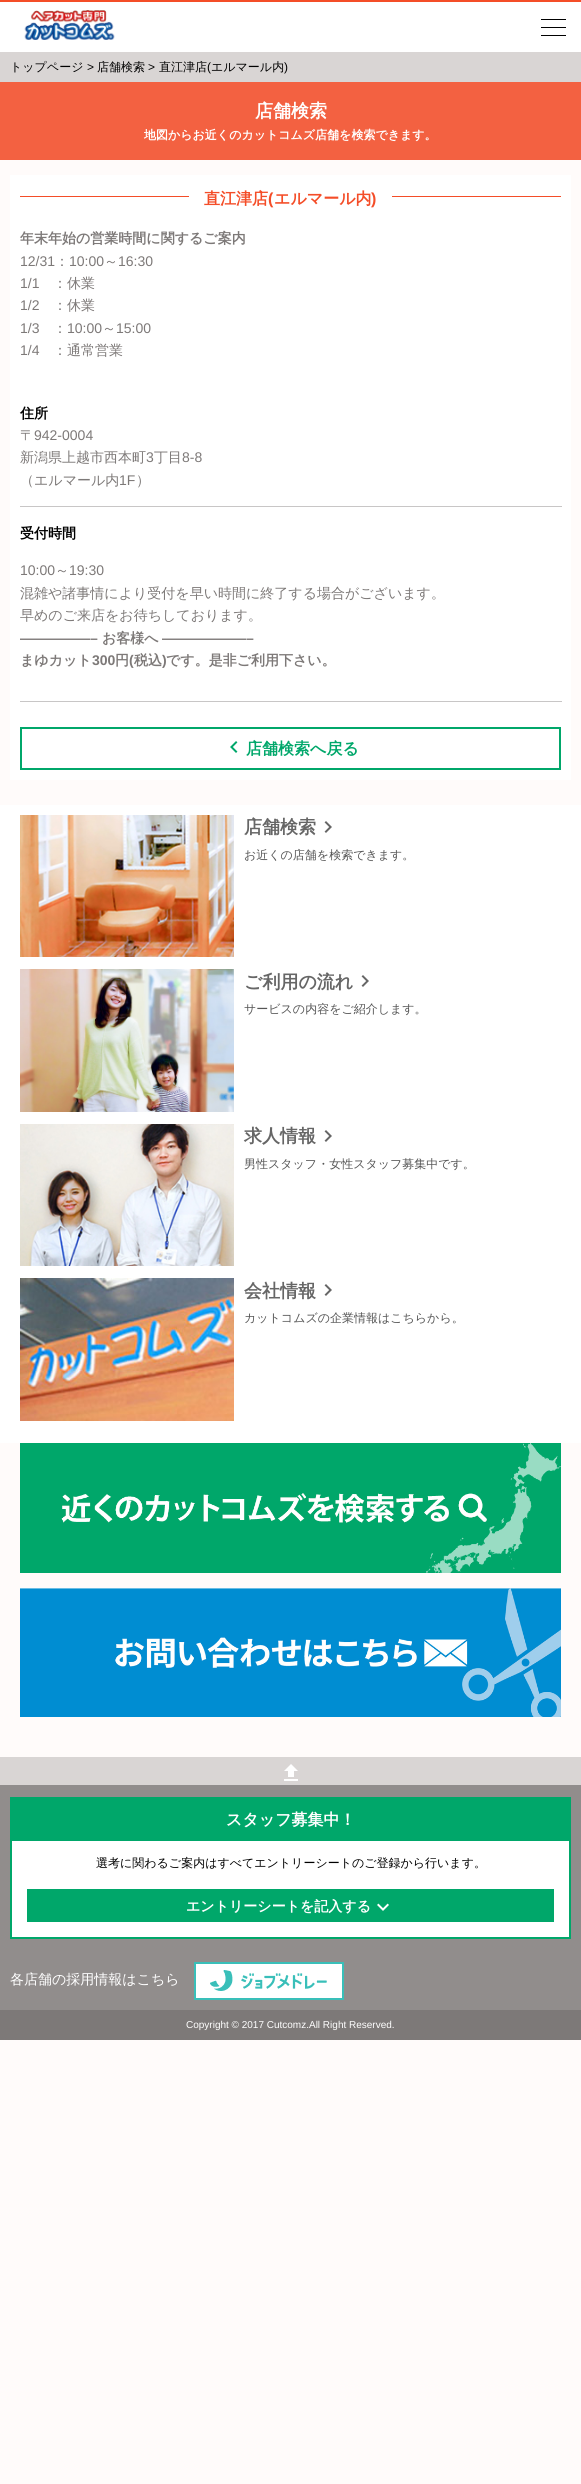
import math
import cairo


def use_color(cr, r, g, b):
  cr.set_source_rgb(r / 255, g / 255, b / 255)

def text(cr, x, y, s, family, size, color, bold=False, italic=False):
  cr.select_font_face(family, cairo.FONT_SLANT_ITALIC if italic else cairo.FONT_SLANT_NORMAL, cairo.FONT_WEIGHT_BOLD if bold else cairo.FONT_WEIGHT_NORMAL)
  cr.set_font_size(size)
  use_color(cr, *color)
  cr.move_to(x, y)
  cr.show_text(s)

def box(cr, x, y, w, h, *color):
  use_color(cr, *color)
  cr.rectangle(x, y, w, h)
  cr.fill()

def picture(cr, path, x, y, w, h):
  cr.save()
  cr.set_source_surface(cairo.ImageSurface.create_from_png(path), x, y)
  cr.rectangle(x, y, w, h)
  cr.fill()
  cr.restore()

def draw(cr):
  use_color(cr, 255, 251, 250)
  cr.paint()
  box(cr, 0, 2, 581, 50, 255, 255, 255)
  box(cr, 0, 0, 581, 2, 244, 77, 40)
  picture(cr, "img_01.png", 24, 10, 91, 30)
  box(cr, 541, 19, 25, 1, 0, 0, 0)
  box(cr, 541, 27, 25, 1, 0, 0, 0)
  box(cr, 541, 35, 25, 1, 0, 0, 0)
  box(cr, 0, 52, 581, 30, 217, 213, 212)
  box(cr, 0, 82, 581, 78, 243, 97, 65)
  box(cr, 10, 175, 561, 605, 255, 255, 255)
  box(cr, 20, 196, 541, 1, 244, 77, 40)
  box(cr, 189, 196, 203, 1, 255, 255, 255)
  box(cr, 20, 506, 542, 1, 200, 198, 198)
  box(cr, 20, 701, 542, 1, 200, 198, 198)
  cr.rectangle(21, 728, 539, 41)
  use_color(cr, 0, 167, 106)
  cr.stroke()
  picture(cr, "img_02.png", 230, 741, 8, 12)
  box(cr, 0, 805, 581, 638, 255, 255, 255)
  picture(cr, "img_03.png", 20, 815, 214, 142)
  picture(cr, "img_04.png", 324, 821, 8, 12)
  picture(cr, "img_05.png", 20, 969, 214, 143)
  picture(cr, "img_04.png", 361, 975, 8, 12)
  picture(cr, "img_06.png", 20, 1124, 214, 142)
  picture(cr, "img_04.png", 324, 1130, 8, 12)
  picture(cr, "img_07.png", 20, 1278, 214, 143)
  picture(cr, "img_04.png", 324, 1284, 8, 12)
  picture(cr, "img_08.png", 20, 1443, 541, 130)
  picture(cr, "img_09.png", 20, 1588, 541, 129)
  box(cr, 0, 1785, 581, 225, 145, 141, 140)
  box(cr, 0, 1757, 581, 28, 217, 213, 212)
  picture(cr, "img_10.png", 284, 1764, 14, 17)
  box(cr, 12, 1841, 557, 96, 255, 255, 255)
  cr.rectangle(11, 1798, 559, 140)
  use_color(cr, 0, 167, 106)
  cr.stroke()
  box(cr, 12, 1799, 557, 42, 0, 167, 106)
  box(cr, 27, 1889, 527, 33, 0, 167, 106)
  picture(cr, "img_11.png", 377, 1903, 12, 8)
  picture(cr, "img_12.png", 194, 1962, 150, 38)
  box(cr, 0, 2010, 581, 30, 125, 121, 120)
  text(cr, 10, 71, "トップページ", "WenQuanYi Zen Hei Medium", 12, (0, 0, 0))
  text(cr, 87, 71, ">", "Liberation Sans", 12, (0, 0, 0))
  text(cr, 97, 71, "店舗検索", "WenQuanYi Zen Hei Medium", 12, (0, 0, 0))
  text(cr, 148, 71, ">", "Liberation Sans", 12, (0, 0, 0))
  text(cr, 159, 71, "直江津店", "WenQuanYi Zen Hei Medium", 12, (0, 0, 0))
  text(cr, 207, 71, "(", "Liberation Sans", 12, (0, 0, 0))
  text(cr, 211, 71, "エルマール内", "WenQuanYi Zen Hei Medium", 12, (0, 0, 0))
  text(cr, 284, 71, ")", "Liberation Sans", 12, (0, 0, 0))
  text(cr, 255, 117, "店舗検索", "WenQuanYi Zen Hei", 18, (255, 255, 255), bold=True)
  text(cr, 144, 139, "地図からお近くのカットコムズ店舗を検索できます。", "WenQuanYi Zen Hei", 12, (255, 255, 255), bold=True)
  text(cr, 204, 204, "直江津店", "WenQuanYi Zen Hei", 16, (244, 77, 40), bold=True)
  text(cr, 268, 204, "(", "Liberation Sans", 16, (244, 77, 40), bold=True)
  text(cr, 274, 204, "エルマール内", "WenQuanYi Zen Hei", 16, (244, 77, 40), bold=True)
  text(cr, 371, 204, ")", "Liberation Sans", 16, (244, 77, 40), bold=True)
  text(cr, 20, 243, "年末年始の営業時間に関するご案内", "WenQuanYi Zen Hei", 14, (125, 121, 120), bold=True)
  text(cr, 20, 266, "12/31", "Liberation Sans", 14, (125, 121, 120))
  text(cr, 55, 266, "：", "WenQuanYi Zen Hei Medium", 14, (125, 121, 120))
  text(cr, 69, 266, "10:00", "Liberation Sans", 14, (125, 121, 120))
  text(cr, 104, 266, "～", "WenQuanYi Zen Hei Medium", 14, (125, 121, 120))
  text(cr, 118, 266, "16:30", "Liberation Sans", 14, (125, 121, 120))
  text(cr, 20, 288, "1/1", "Liberation Sans", 14, (125, 121, 120))
  text(cr, 53, 288, "：休業", "WenQuanYi Zen Hei Medium", 14, (125, 121, 120))
  text(cr, 20, 310, "1/2", "Liberation Sans", 14, (125, 121, 120))
  text(cr, 53, 310, "：休業", "WenQuanYi Zen Hei Medium", 14, (125, 121, 120))
  text(cr, 20, 333, "1/3", "Liberation Sans", 14, (125, 121, 120))
  text(cr, 53, 333, "：", "WenQuanYi Zen Hei Medium", 14, (125, 121, 120))
  text(cr, 67, 333, "10:00", "Liberation Sans", 14, (125, 121, 120))
  text(cr, 102, 333, "～", "WenQuanYi Zen Hei Medium", 14, (125, 121, 120))
  text(cr, 116, 333, "15:00", "Liberation Sans", 14, (125, 121, 120))
  text(cr, 20, 355, "1/4", "Liberation Sans", 14, (125, 121, 120))
  text(cr, 53, 355, "：通常営業", "WenQuanYi Zen Hei Medium", 14, (125, 121, 120))
  text(cr, 20, 418, "住所", "WenQuanYi Zen Hei", 14, (0, 0, 0), bold=True)
  text(cr, 20, 440, "〒", "WenQuanYi Zen Hei Medium", 14, (125, 121, 120))
  text(cr, 34, 440, "942-0004", "Liberation Sans", 14, (125, 121, 120))
  text(cr, 20, 462, "新潟県上越市西本町", "WenQuanYi Zen Hei Medium", 14, (125, 121, 120))
  text(cr, 146, 462, "3", "Liberation Sans", 14, (125, 121, 120))
  text(cr, 154, 462, "丁目", "WenQuanYi Zen Hei Medium", 14, (125, 121, 120))
  text(cr, 182, 462, "8-8", "Liberation Sans", 14, (125, 121, 120))
  text(cr, 20, 485, "（エルマール内", "WenQuanYi Zen Hei Medium", 14, (125, 121, 120))
  text(cr, 119, 485, "1F", "Liberation Sans", 14, (125, 121, 120))
  text(cr, 136, 485, "）", "WenQuanYi Zen Hei Medium", 14, (125, 121, 120))
  text(cr, 20, 538, "受付時間", "WenQuanYi Zen Hei", 14, (0, 0, 0), bold=True)
  text(cr, 20, 575, "10:00", "Liberation Sans", 14, (125, 121, 120))
  text(cr, 55, 575, "～", "WenQuanYi Zen Hei Medium", 14, (125, 121, 120))
  text(cr, 69, 575, "19:30", "Liberation Sans", 14, (125, 121, 120))
  text(cr, 20, 598, "混雑や諸事情により受付を早い時間に終了する場合がございます。", "WenQuanYi Zen Hei Medium", 14, (125, 121, 120))
  text(cr, 20, 620, "早めのご来店をお待ちしております。", "WenQuanYi Zen Hei Medium", 14, (125, 121, 120))
  text(cr, 20, 643, "—————–", "Liberation Sans", 14, (125, 121, 120), bold=True)
  text(cr, 102, 643, "お客様へ", "WenQuanYi Zen Hei", 14, (125, 121, 120), bold=True)
  text(cr, 162, 643, "——————–", "Liberation Sans", 14, (125, 121, 120), bold=True)
  text(cr, 20, 665, "まゆカット", "WenQuanYi Zen Hei", 14, (125, 121, 120), bold=True)
  text(cr, 92, 665, "300", "Liberation Sans", 14, (125, 121, 120), bold=True)
  text(cr, 115, 665, "円", "WenQuanYi Zen Hei", 14, (125, 121, 120), bold=True)
  text(cr, 129, 665, "(", "Liberation Sans", 14, (125, 121, 120), bold=True)
  text(cr, 134, 665, "税込", "WenQuanYi Zen Hei", 14, (125, 121, 120), bold=True)
  text(cr, 162, 665, ")", "Liberation Sans", 14, (125, 121, 120), bold=True)
  text(cr, 166, 665, "です。是非ご利用下さい。", "WenQuanYi Zen Hei", 14, (125, 121, 120), bold=True)
  text(cr, 246, 754, "店舗検索へ戻る", "WenQuanYi Zen Hei", 16, (0, 167, 106), bold=True)
  text(cr, 244, 833, "店舗検索", "WenQuanYi Zen Hei", 18, (102, 102, 102), bold=True)
  text(cr, 244, 859, "お近くの店舗を検索できます。", "WenQuanYi Zen Hei Medium", 12, (85, 85, 85))
  text(cr, 244, 988, "ご利用の流れ", "WenQuanYi Zen Hei", 18, (102, 102, 102), bold=True)
  text(cr, 244, 1013, "サービスの内容をご紹介します。", "WenQuanYi Zen Hei Medium", 12, (85, 85, 85))
  text(cr, 244, 1142, "求人情報", "WenQuanYi Zen Hei", 18, (102, 102, 102), bold=True)
  text(cr, 244, 1168, "男性スタッフ・女性スタッフ募集中です。", "WenQuanYi Zen Hei Medium", 12, (85, 85, 85))
  text(cr, 244, 1297, "会社情報", "WenQuanYi Zen Hei", 18, (102, 102, 102), bold=True)
  text(cr, 244, 1322, "カットコムズの企業情報はこちらから。", "WenQuanYi Zen Hei Medium", 12, (85, 85, 85))
  text(cr, 226, 1825, "スタッフ募集中！", "WenQuanYi Zen Hei", 16, (255, 255, 255), bold=True)
  text(cr, 96, 1867, "選考に関わるご案内はすべてエントリーシートのご登録から行います。", "WenQuanYi Zen Hei Medium", 12, (0, 0, 0))
  text(cr, 186, 1911, "エントリーシートを記入する", "WenQuanYi Zen Hei", 14, (255, 255, 255), bold=True)
  text(cr, 10, 1984, "各店舗の採用情報はこちら", "WenQuanYi Zen Hei Medium", 14, (255, 255, 255))
  text(cr, 186, 2028, "Copyright © 2017 Cutcomz.All Right Reserved.", "Liberation Sans", 10, (255, 255, 255))


surface = cairo.ImageSurface(cairo.FORMAT_RGB24, 581, 2484)
cr = cairo.Context(surface)
options = cairo.FontOptions()
options.set_hint_metrics(cairo.HINT_METRICS_OFF)
options.set_hint_style(cairo.HINT_STYLE_NONE)
cr.set_font_options(options)
cr.set_miter_limit(4)
draw(cr)
surface.write_to_png("out.png")
